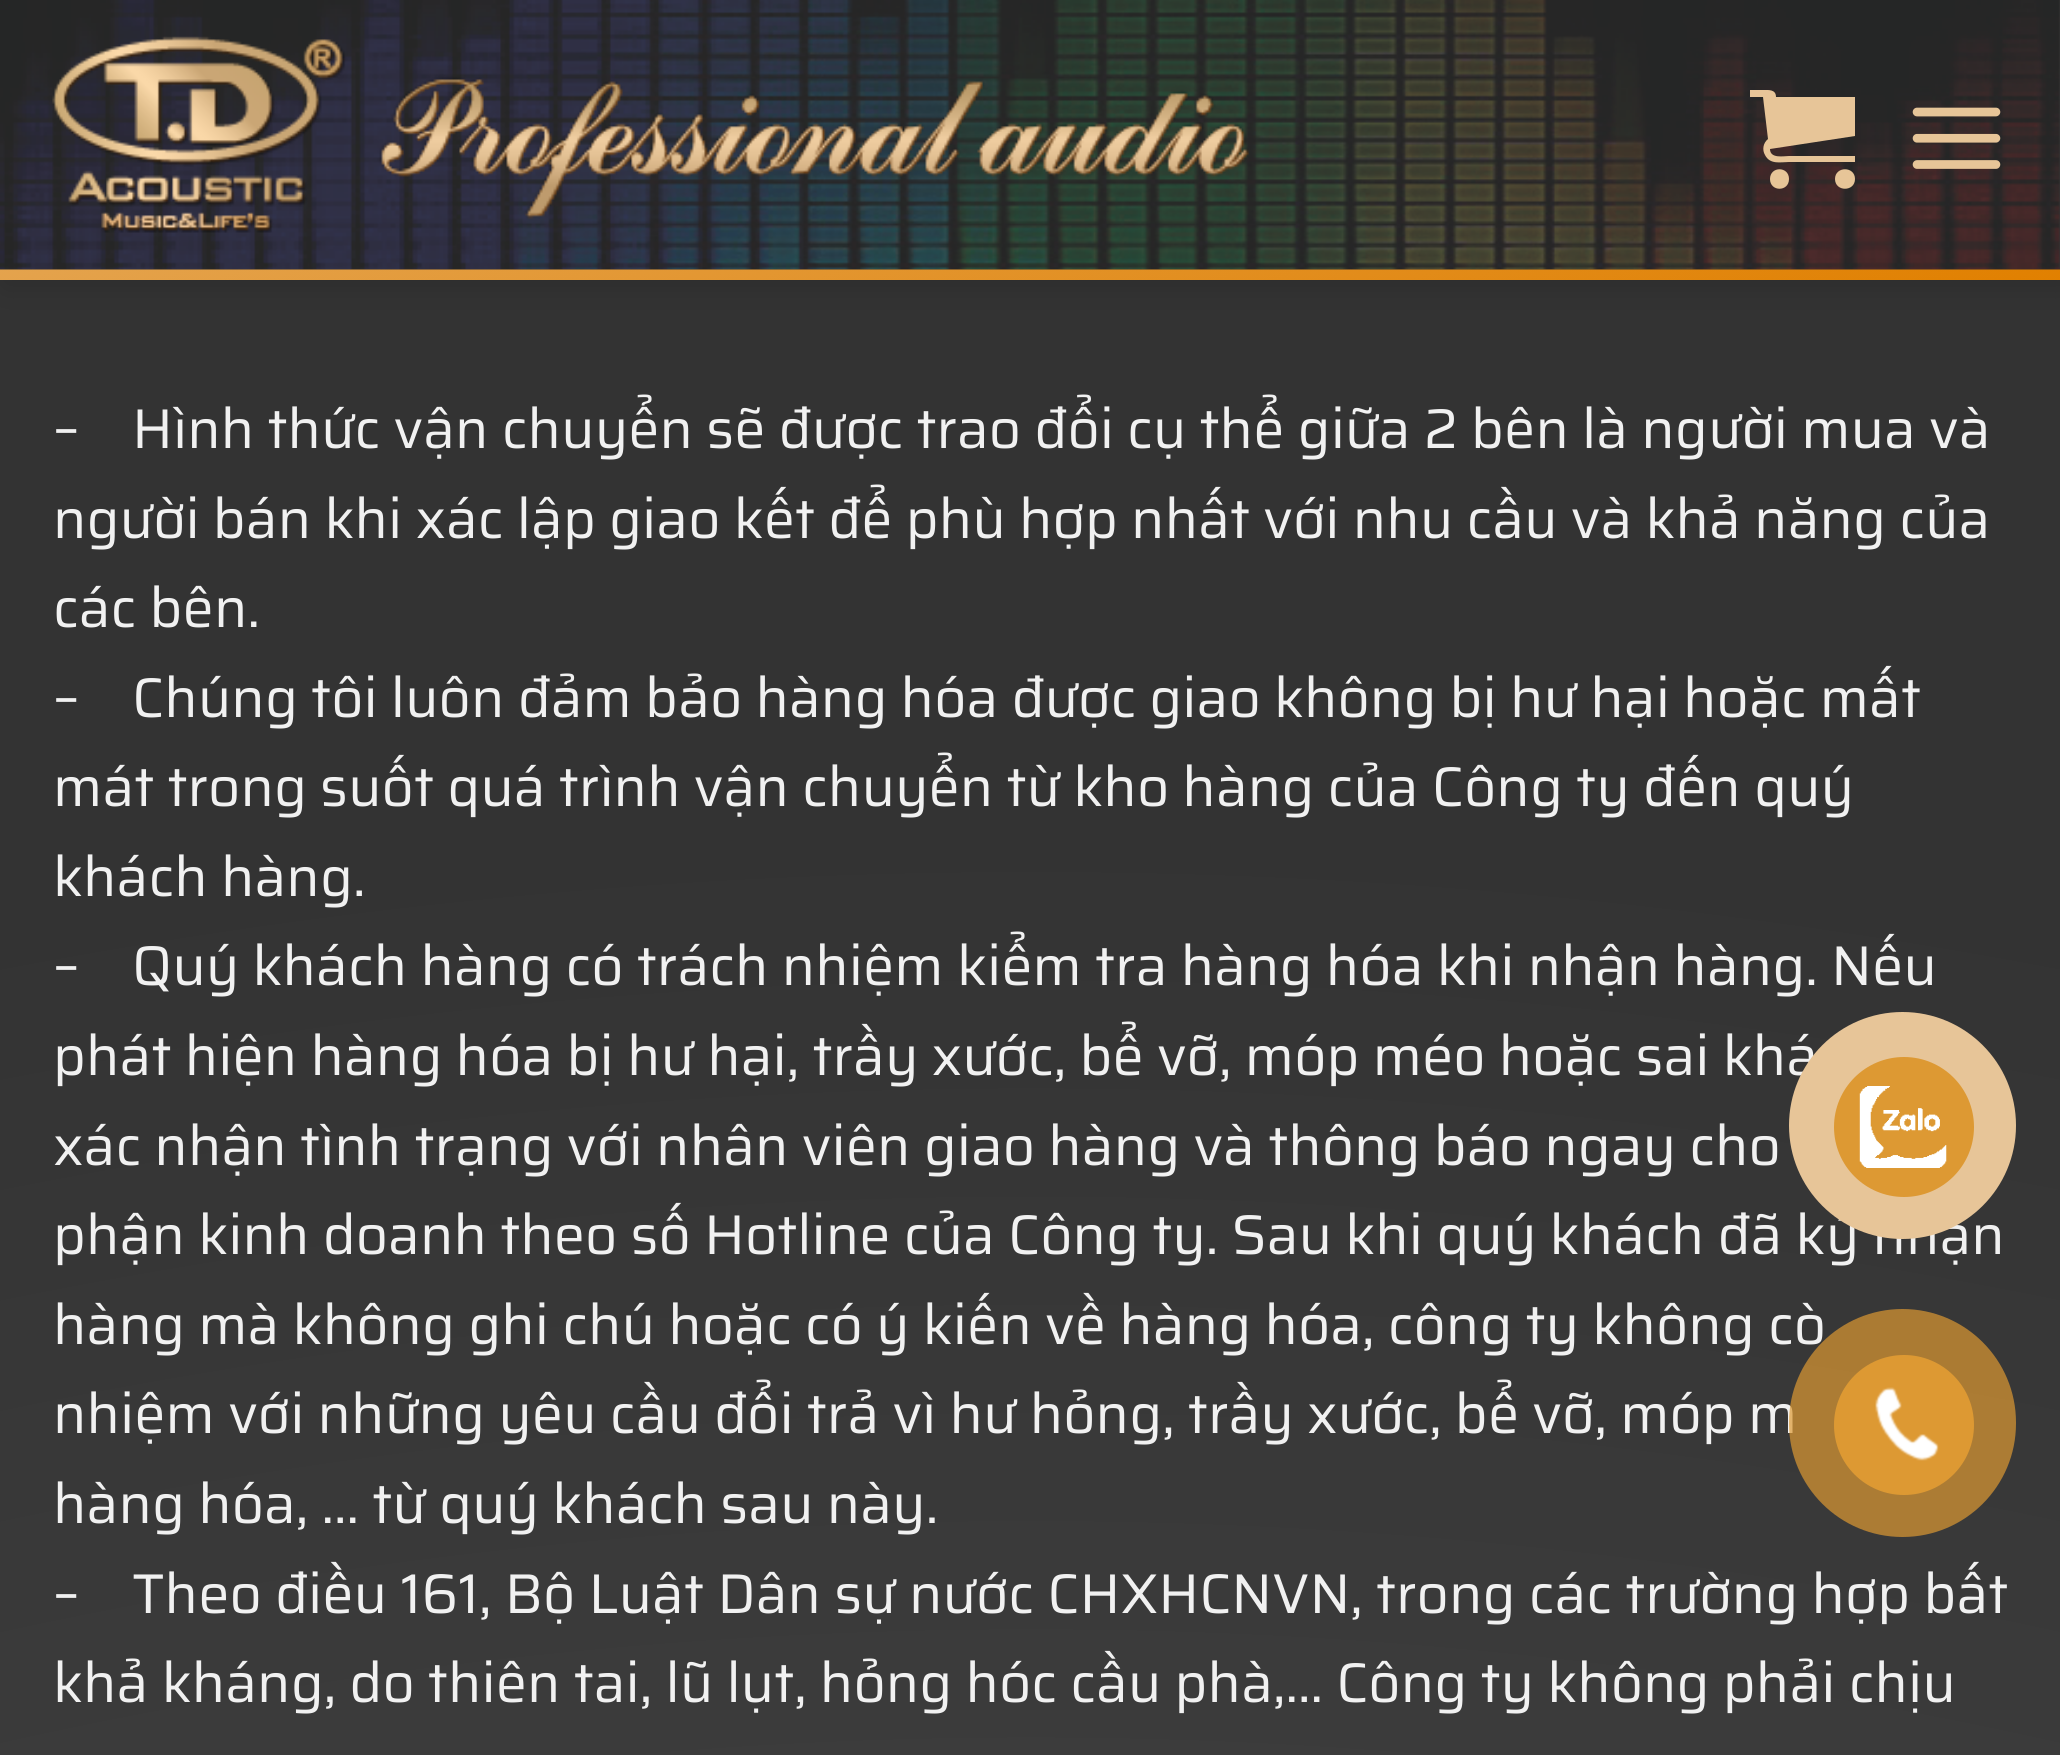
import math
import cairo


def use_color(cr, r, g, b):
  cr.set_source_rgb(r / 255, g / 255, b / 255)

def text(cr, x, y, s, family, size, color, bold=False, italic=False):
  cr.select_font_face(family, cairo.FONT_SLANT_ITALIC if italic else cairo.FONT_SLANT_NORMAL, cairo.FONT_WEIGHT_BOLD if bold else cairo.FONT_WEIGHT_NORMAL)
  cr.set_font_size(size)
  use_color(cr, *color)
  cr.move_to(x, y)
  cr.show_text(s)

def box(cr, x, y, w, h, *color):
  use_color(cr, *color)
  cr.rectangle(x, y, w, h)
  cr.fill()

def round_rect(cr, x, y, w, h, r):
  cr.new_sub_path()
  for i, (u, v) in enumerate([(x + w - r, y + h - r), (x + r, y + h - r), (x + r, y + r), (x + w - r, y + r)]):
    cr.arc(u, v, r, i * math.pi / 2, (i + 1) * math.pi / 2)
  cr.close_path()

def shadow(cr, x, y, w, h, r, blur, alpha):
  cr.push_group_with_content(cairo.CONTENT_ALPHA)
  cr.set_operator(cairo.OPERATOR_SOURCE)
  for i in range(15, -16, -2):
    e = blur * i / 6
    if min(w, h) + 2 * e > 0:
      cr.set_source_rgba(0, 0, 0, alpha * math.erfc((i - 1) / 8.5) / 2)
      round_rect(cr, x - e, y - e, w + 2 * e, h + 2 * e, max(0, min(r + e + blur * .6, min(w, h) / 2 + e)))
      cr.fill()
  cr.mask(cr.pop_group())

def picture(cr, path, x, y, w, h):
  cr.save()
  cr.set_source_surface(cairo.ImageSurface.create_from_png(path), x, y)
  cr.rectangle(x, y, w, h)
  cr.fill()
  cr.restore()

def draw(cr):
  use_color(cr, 255, 255, 255)
  cr.paint()
  gradient = cairo.RadialGradient(1031, 6353, 0, 1031, 6353, 6436)
  gradient.add_color_stop_rgba(0.29, 0.333, 0.333, 0.333, 1)
  gradient.add_color_stop_rgba(0.86, 0.2, 0.2, 0.2, 1)
  cr.set_source(gradient)
  cr.rectangle(0, 280, 2060, 1475)
  cr.fill()
  use_color(cr, 0, 0, 0)
  shadow(cr, 4, 4, 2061, 280, 0, 17.5, 0.15)
  box(cr, 0, 0, 2060, 270, 52, 52, 52)
  picture(cr, "img_01.png", 0, 0, 2060, 270)
  picture(cr, "img_02.png", 0, 269, 2060, 11)
  picture(cr, "img_03.png", 52, 36, 1197, 197)
  use_color(cr, 231, 197, 152)
  cr.new_path()
  cr.move_to(1789, 179)
  cr.curve_to(1789, 192, 1770, 192, 1770, 179)
  cr.curve_to(1770, 166, 1789, 166, 1789, 179)
  cr.close_path()
  cr.move_to(1855, 179)
  cr.curve_to(1855, 192, 1835, 192, 1835, 179)
  cr.curve_to(1835, 166, 1855, 166, 1855, 179)
  cr.close_path()
  cr.move_to(1855, 136)
  cr.line_to(1855, 97)
  cr.line_to(1776, 97)
  cr.curve_to(1776, 89, 1768, 90, 1763, 90)
  cr.line_to(1750, 90)
  cr.line_to(1750, 97)
  cr.line_to(1763, 97)
  cr.line_to(1768, 139)
  cr.curve_to(1763, 143, 1762, 150, 1765, 155)
  cr.curve_to(1770, 165, 1781, 162, 1789, 162)
  cr.line_to(1855, 162)
  cr.line_to(1855, 156)
  cr.line_to(1789, 156)
  cr.curve_to(1784, 156, 1770, 159, 1770, 149)
  cr.close_path()
  cr.fill()
  picture(cr, "img_04.png", 1912, 107, 89, 62)
  text(cr, 53, 448, "–    Hình thức vận chuyển sẽ được trao đổi cụ thể giữa 2 bên là người mua và", "Saira Thin", 56, (241, 241, 241))
  text(cr, 53, 538, "người bán khi xác lập giao kết để phù hợp nhất với nhu cầu và khả năng của", "Saira Thin", 56, (241, 241, 241))
  text(cr, 53, 627, "các bên.", "Saira Thin", 56, (241, 241, 241))
  text(cr, 53, 717, "–    Chúng tôi luôn đảm bảo hàng hóa được giao không bị hư hại hoặc mất", "Saira Thin", 56, (241, 241, 241))
  text(cr, 53, 806, "mát trong suốt quá trình vận chuyển từ kho hàng của Công ty đến quý", "Saira Thin", 56, (241, 241, 241))
  text(cr, 53, 896, "khách hàng.", "Saira Thin", 56, (241, 241, 241))
  text(cr, 53, 985, "–    Quý khách hàng có trách nhiệm kiểm tra hàng hóa khi nhận hàng. Nếu", "Saira Thin", 56, (241, 241, 241))
  text(cr, 53, 1075, "phát hiện hàng hóa bị hư hại, trầy xước, bể vỡ, móp méo hoặc sai khá", "Saira Thin", 56, (241, 241, 241))
  text(cr, 53, 1165, "xác nhận tình trạng với nhân viên giao hàng và thông báo ngay cho", "Saira Thin", 56, (241, 241, 241))
  text(cr, 53, 1254, "phận kinh doanh theo số Hotline của Công ty. Sau khi quý khách đã ký nhận", "Saira Thin", 56, (241, 241, 241))
  text(cr, 53, 1344, "hàng mà không ghi chú hoặc có ý kiến về hàng hóa, công ty không cò", "Saira Thin", 56, (241, 241, 241))
  text(cr, 53, 1433, "nhiệm với những yêu cầu đổi trả vì hư hỏng, trầy xước, bể vỡ, móp m", "Saira Thin", 56, (241, 241, 241))
  text(cr, 53, 1523, "hàng hóa, … từ quý khách sau này.", "Saira Thin", 56, (241, 241, 241))
  text(cr, 53, 1613, "–    Theo điều 161, Bộ Luật Dân sự nước CHXHCNVN, trong các trường hợp bất", "Saira Thin", 56, (241, 241, 241))
  text(cr, 53, 1702, "khả kháng, do thiên tai, lũ lụt, hỏng hóc cầu phà,… Công ty không phải chịu", "Saira Thin", 56, (241, 241, 241))
  use_color(cr, 231, 197, 152)
  cr.new_path()
  cr.arc(1902.5, 1125.5, 113.5, 0, 2 * math.pi)
  cr.fill()
  use_color(cr, 221, 153, 51)
  cr.arc(1904, 1127, 70, 0, 2 * math.pi)
  cr.fill()
  picture(cr, "img_05.png", 1859, 1086, 88, 82)
  cr.set_source_rgba(0.867, 0.6, 0.2, 0.7)
  round_rect(cr, 1789, 1309, 227, 228, 113.5)
  cr.fill()
  use_color(cr, 221, 153, 51)
  cr.arc(1904, 1425, 70, 0, 2 * math.pi)
  cr.fill()
  picture(cr, "img_06.png", 1875, 1387, 64, 74)


surface = cairo.ImageSurface(cairo.FORMAT_RGB24, 2060, 1755)
cr = cairo.Context(surface)
options = cairo.FontOptions()
options.set_hint_metrics(cairo.HINT_METRICS_OFF)
options.set_hint_style(cairo.HINT_STYLE_NONE)
cr.set_font_options(options)
cr.set_miter_limit(4)
draw(cr)
surface.write_to_png("out.png")
